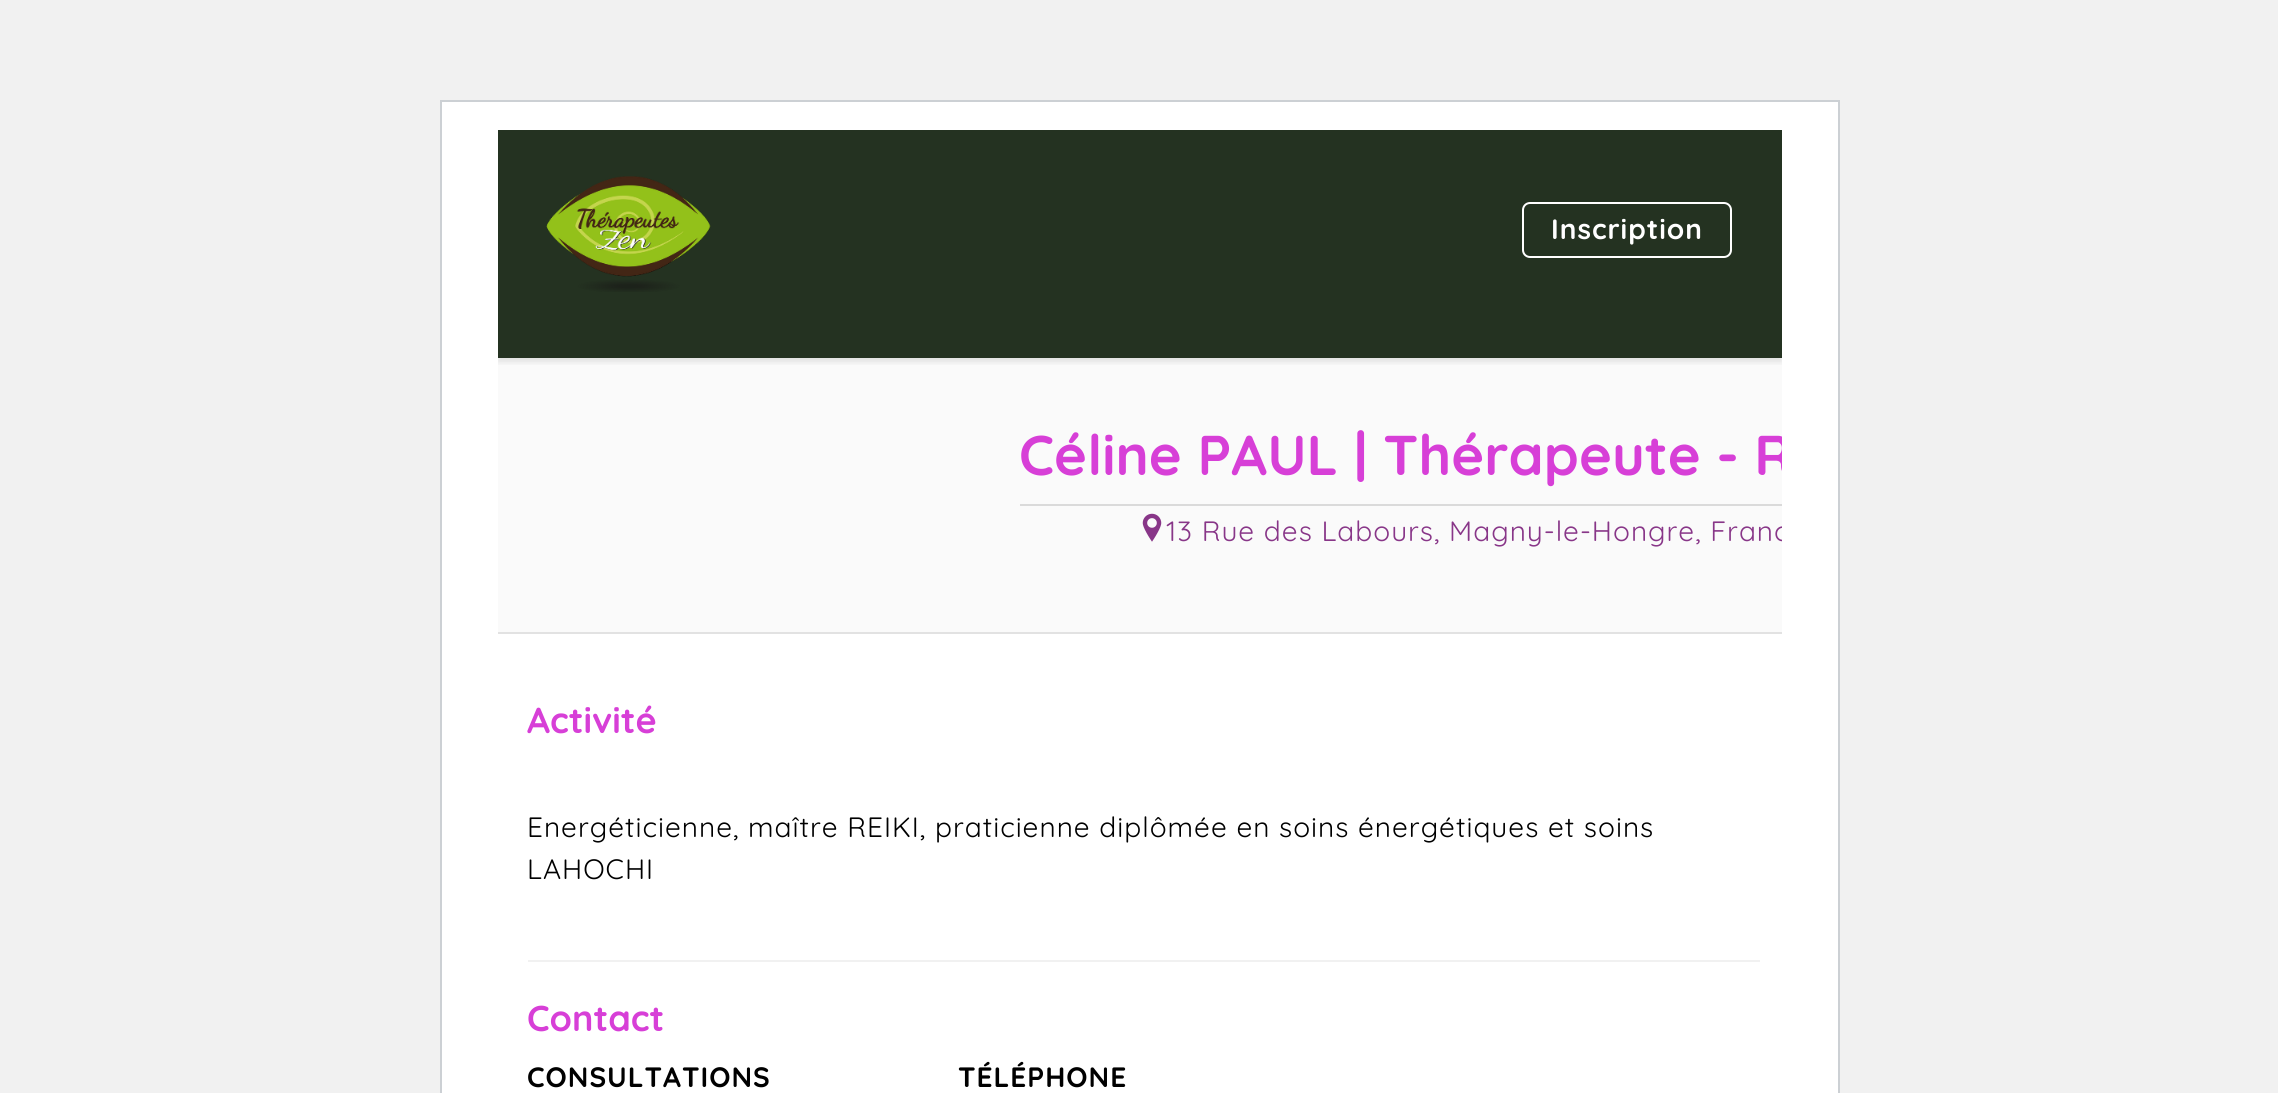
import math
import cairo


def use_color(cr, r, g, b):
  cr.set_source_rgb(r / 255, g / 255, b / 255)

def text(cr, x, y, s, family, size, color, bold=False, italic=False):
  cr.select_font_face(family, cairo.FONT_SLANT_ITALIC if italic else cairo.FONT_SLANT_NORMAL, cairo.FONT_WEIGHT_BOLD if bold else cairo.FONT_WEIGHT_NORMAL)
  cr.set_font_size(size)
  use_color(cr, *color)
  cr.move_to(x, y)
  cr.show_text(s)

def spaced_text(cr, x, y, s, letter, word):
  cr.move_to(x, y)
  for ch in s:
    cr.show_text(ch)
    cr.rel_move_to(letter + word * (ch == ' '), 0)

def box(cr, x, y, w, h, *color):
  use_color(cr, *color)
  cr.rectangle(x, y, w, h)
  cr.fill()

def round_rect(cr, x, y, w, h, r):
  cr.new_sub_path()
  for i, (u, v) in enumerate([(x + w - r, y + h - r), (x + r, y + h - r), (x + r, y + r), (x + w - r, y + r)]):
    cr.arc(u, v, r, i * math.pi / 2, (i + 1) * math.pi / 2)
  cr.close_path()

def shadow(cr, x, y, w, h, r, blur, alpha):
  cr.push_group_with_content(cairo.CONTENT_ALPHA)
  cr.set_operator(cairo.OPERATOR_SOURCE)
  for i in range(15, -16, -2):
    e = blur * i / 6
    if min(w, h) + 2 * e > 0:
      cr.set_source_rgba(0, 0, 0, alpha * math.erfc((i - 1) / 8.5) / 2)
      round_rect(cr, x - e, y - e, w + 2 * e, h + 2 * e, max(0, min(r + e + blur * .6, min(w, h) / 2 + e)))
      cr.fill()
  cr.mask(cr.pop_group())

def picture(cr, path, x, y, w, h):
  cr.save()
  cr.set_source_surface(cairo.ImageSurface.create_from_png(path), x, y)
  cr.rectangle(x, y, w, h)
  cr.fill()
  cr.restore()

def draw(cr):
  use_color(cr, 241, 241, 241)
  cr.paint()
  use_color(cr, 255, 255, 255)
  cr.rectangle(441, 101, 1398, 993)
  cr.fill_preserve()
  use_color(cr, 204, 208, 212)
  cr.stroke()
  box(cr, 498, 130, 1284, 228, 36, 50, 33)
  box(cr, 498, 358, 1284, 274, 250, 250, 250)
  cr.save()
  cr.rectangle(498, 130, 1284, 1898)
  cr.clip()
  cr.rectangle(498, 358, 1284, 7)
  cr.clip()
  use_color(cr, 0, 0, 0)
  shadow(cr, 498, 134, 1284, 228, 0, 3, 0.1)
  cr.restore()
  picture(cr, "img_01.png", 546, 176, 165, 116)
  round_rect(cr, 1523, 203, 208, 54, 7)
  use_color(cr, 255, 255, 255)
  cr.stroke()
  box(cr, 498, 632, 1284, 2, 226, 226, 226)
  box(cr, 1020, 504, 762, 2, 218, 218, 218)
  picture(cr, "img_02.png", 1142, 513, 20, 29)
  box(cr, 528, 960, 1232, 2, 241, 241, 241)
  cr.select_font_face("Quicksand", cairo.FONT_SLANT_NORMAL, cairo.FONT_WEIGHT_BOLD)
  cr.set_font_size(28)
  use_color(cr, 255, 255, 255)
  spaced_text(cr, 1551, 239, "Inscription", 1, 0)
  cr.save()
  cr.rectangle(498, 130, 1284, 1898)
  cr.clip()
  text(cr, 1019, 475, "Céline PAUL | Thérapeute - R", "Quicksand", 56, (215, 63, 215), bold=True)
  cr.select_font_face("Quicksand")
  cr.set_font_size(28)
  use_color(cr, 136, 54, 136)
  spaced_text(cr, 1166, 541, "13 Rue des Labours, Magny-le-Hongre, Franc", 1, 0)
  cr.restore()
  text(cr, 527, 733, "Activité", "Quicksand", 36, (215, 63, 215), bold=True)
  cr.select_font_face("Quicksand")
  cr.set_font_size(28)
  use_color(cr, 0, 0, 0)
  spaced_text(cr, 527, 837, "Energéticienne, maître REIKI, praticienne diplômée en soins énergétiques et soins", 1, 0)
  spaced_text(cr, 527, 879, "LAHOCHI", 1, 0)
  text(cr, 527, 1031, "Contact", "Quicksand", 36, (215, 63, 215), bold=True)
  cr.set_font_size(28)
  use_color(cr, 0, 0, 0)
  spaced_text(cr, 527, 1087, "CONSULTATIONS", 1, 0)
  spaced_text(cr, 958, 1087, "TÉLÉPHONE", 1, 0)


surface = cairo.ImageSurface(cairo.FORMAT_RGB24, 2278, 1093)
cr = cairo.Context(surface)
options = cairo.FontOptions()
options.set_hint_metrics(cairo.HINT_METRICS_OFF)
options.set_hint_style(cairo.HINT_STYLE_NONE)
cr.set_font_options(options)
cr.set_miter_limit(4)
draw(cr)
surface.write_to_png("out.png")
